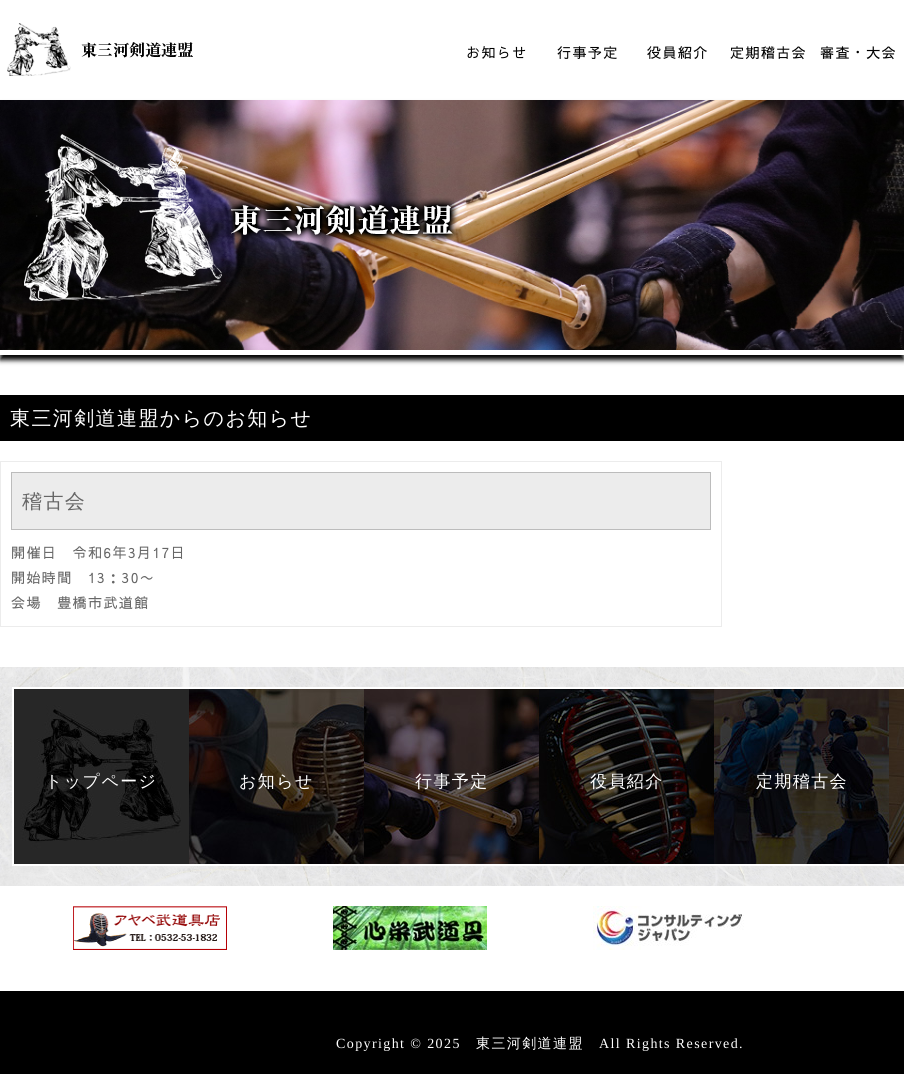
import math
import cairo


def use_color(cr, r, g, b):
  cr.set_source_rgb(r / 255, g / 255, b / 255)

def spaced_text(cr, x, y, s, letter, word):
  cr.move_to(x, y)
  for ch in s:
    cr.show_text(ch)
    cr.rel_move_to(letter + word * (ch == ' '), 0)

def box(cr, x, y, w, h, *color):
  use_color(cr, *color)
  cr.rectangle(x, y, w, h)
  cr.fill()

def round_rect(cr, x, y, w, h, r):
  cr.new_sub_path()
  for i, (u, v) in enumerate([(x + w - r, y + h - r), (x + r, y + h - r), (x + r, y + r), (x + w - r, y + r)]):
    cr.arc(u, v, r, i * math.pi / 2, (i + 1) * math.pi / 2)
  cr.close_path()

def shadow(cr, x, y, w, h, r, blur, alpha):
  cr.push_group_with_content(cairo.CONTENT_ALPHA)
  cr.set_operator(cairo.OPERATOR_SOURCE)
  for i in range(15, -16, -2):
    e = blur * i / 6
    if min(w, h) + 2 * e > 0:
      cr.set_source_rgba(0, 0, 0, alpha * math.erfc((i - 1) / 8.5) / 2)
      round_rect(cr, x - e, y - e, w + 2 * e, h + 2 * e, max(0, min(r + e + blur * .6, min(w, h) / 2 + e)))
      cr.fill()
  cr.mask(cr.pop_group())

def picture(cr, path, x, y, w, h):
  cr.save()
  cr.set_source_surface(cairo.ImageSurface.create_from_png(path), x, y)
  cr.rectangle(x, y, w, h)
  cr.fill()
  cr.restore()

def draw(cr):
  use_color(cr, 255, 255, 255)
  cr.paint()
  picture(cr, "img_01.png", 7, 23, 186, 53)
  use_color(cr, 0, 0, 0)
  shadow(cr, 0, 105, 904, 255, 0, 2.5, 1)
  picture(cr, "img_02.png", 0, 100, 904, 250)
  box(cr, 0, 350, 904, 5, 255, 255, 255)
  picture(cr, "img_03.png", 24, 134, 435, 167)
  box(cr, 0, 395, 904, 46, 0, 0, 0)
  cr.rectangle(0.5, 461.5, 721, 165)
  use_color(cr, 236, 236, 236)
  cr.set_line_width(1)
  cr.stroke()
  cr.rectangle(11.5, 472.5, 699, 57)
  cr.fill_preserve()
  use_color(cr, 188, 188, 188)
  cr.stroke()
  picture(cr, "img_04.png", 0, 667, 904, 219)
  box(cr, 12, 687, 892, 179, 255, 255, 255)
  picture(cr, "img_05.png", 14, 689, 175, 175)
  picture(cr, "img_06.png", 189, 689, 175, 175)
  picture(cr, "img_07.png", 364, 689, 175, 175)
  picture(cr, "img_08.png", 539, 689, 175, 175)
  picture(cr, "img_09.png", 714, 689, 175, 175)
  picture(cr, "img_10.png", 889, 689, 15, 175)
  picture(cr, "img_11.png", 73, 906, 154, 44)
  picture(cr, "img_12.png", 333, 906, 154, 44)
  picture(cr, "img_13.png", 593, 906, 151, 44)
  box(cr, 0, 991, 904, 83, 0, 0, 0)
  cr.select_font_face("Sawarabi Gothic")
  cr.set_font_size(14)
  spaced_text(cr, 466, 58, "お知らせ", 1.4, 0)
  spaced_text(cr, 557, 58, "行事予定", 1.4, 0)
  spaced_text(cr, 647, 58, "役員紹介", 1.4, 0)
  spaced_text(cr, 730, 58, "定期稽古会", 1.4, 0)
  spaced_text(cr, 820, 58, "審査・大会", 1.4, 0)
  cr.select_font_face("WenQuanYi Zen Hei Medium")
  cr.set_font_size(20)
  use_color(cr, 255, 255, 255)
  spaced_text(cr, 10, 425, "東三河剣道連盟からのお知らせ", 1.4, 0)
  use_color(cr, 102, 102, 102)
  spaced_text(cr, 22, 508, "稽古会", 1.4, 0)
  cr.select_font_face("Sawarabi Gothic")
  cr.set_font_size(14)
  spaced_text(cr, 11, 558, "開催日　令和6年3月17日", 1.4, 0)
  spaced_text(cr, 11, 583, "開始時間　13：30〜", 1.4, 0)
  spaced_text(cr, 11, 608, "会場　豊橋市武道館", 1.4, 0)
  cr.select_font_face("WenQuanYi Zen Hei Medium")
  cr.set_font_size(17)
  use_color(cr, 255, 255, 255)
  spaced_text(cr, 45, 787, "トップページ", 1.4, 0)
  spaced_text(cr, 239, 787, "お知らせ", 1.4, 0)
  spaced_text(cr, 415, 787, "行事予定", 1.4, 0)
  spaced_text(cr, 590, 787, "役員紹介", 1.4, 0)
  spaced_text(cr, 756, 787, "定期稽古会", 1.4, 0)
  cr.select_font_face("Liberation Serif")
  cr.set_font_size(14)
  spaced_text(cr, 336, 1048, "Copyright © 2025", 1.4, 0)
  cr.select_font_face("WenQuanYi Zen Hei Medium")
  spaced_text(cr, 476, 1048, "東三河剣道連盟", 1.4, 0)
  cr.select_font_face("Liberation Serif")
  spaced_text(cr, 599, 1048, "All Rights Reserved.", 1.4, 0)


surface = cairo.ImageSurface(cairo.FORMAT_RGB24, 904, 1074)
cr = cairo.Context(surface)
options = cairo.FontOptions()
options.set_hint_metrics(cairo.HINT_METRICS_OFF)
options.set_hint_style(cairo.HINT_STYLE_NONE)
cr.set_font_options(options)
cr.set_miter_limit(4)
draw(cr)
surface.write_to_png("out.png")
